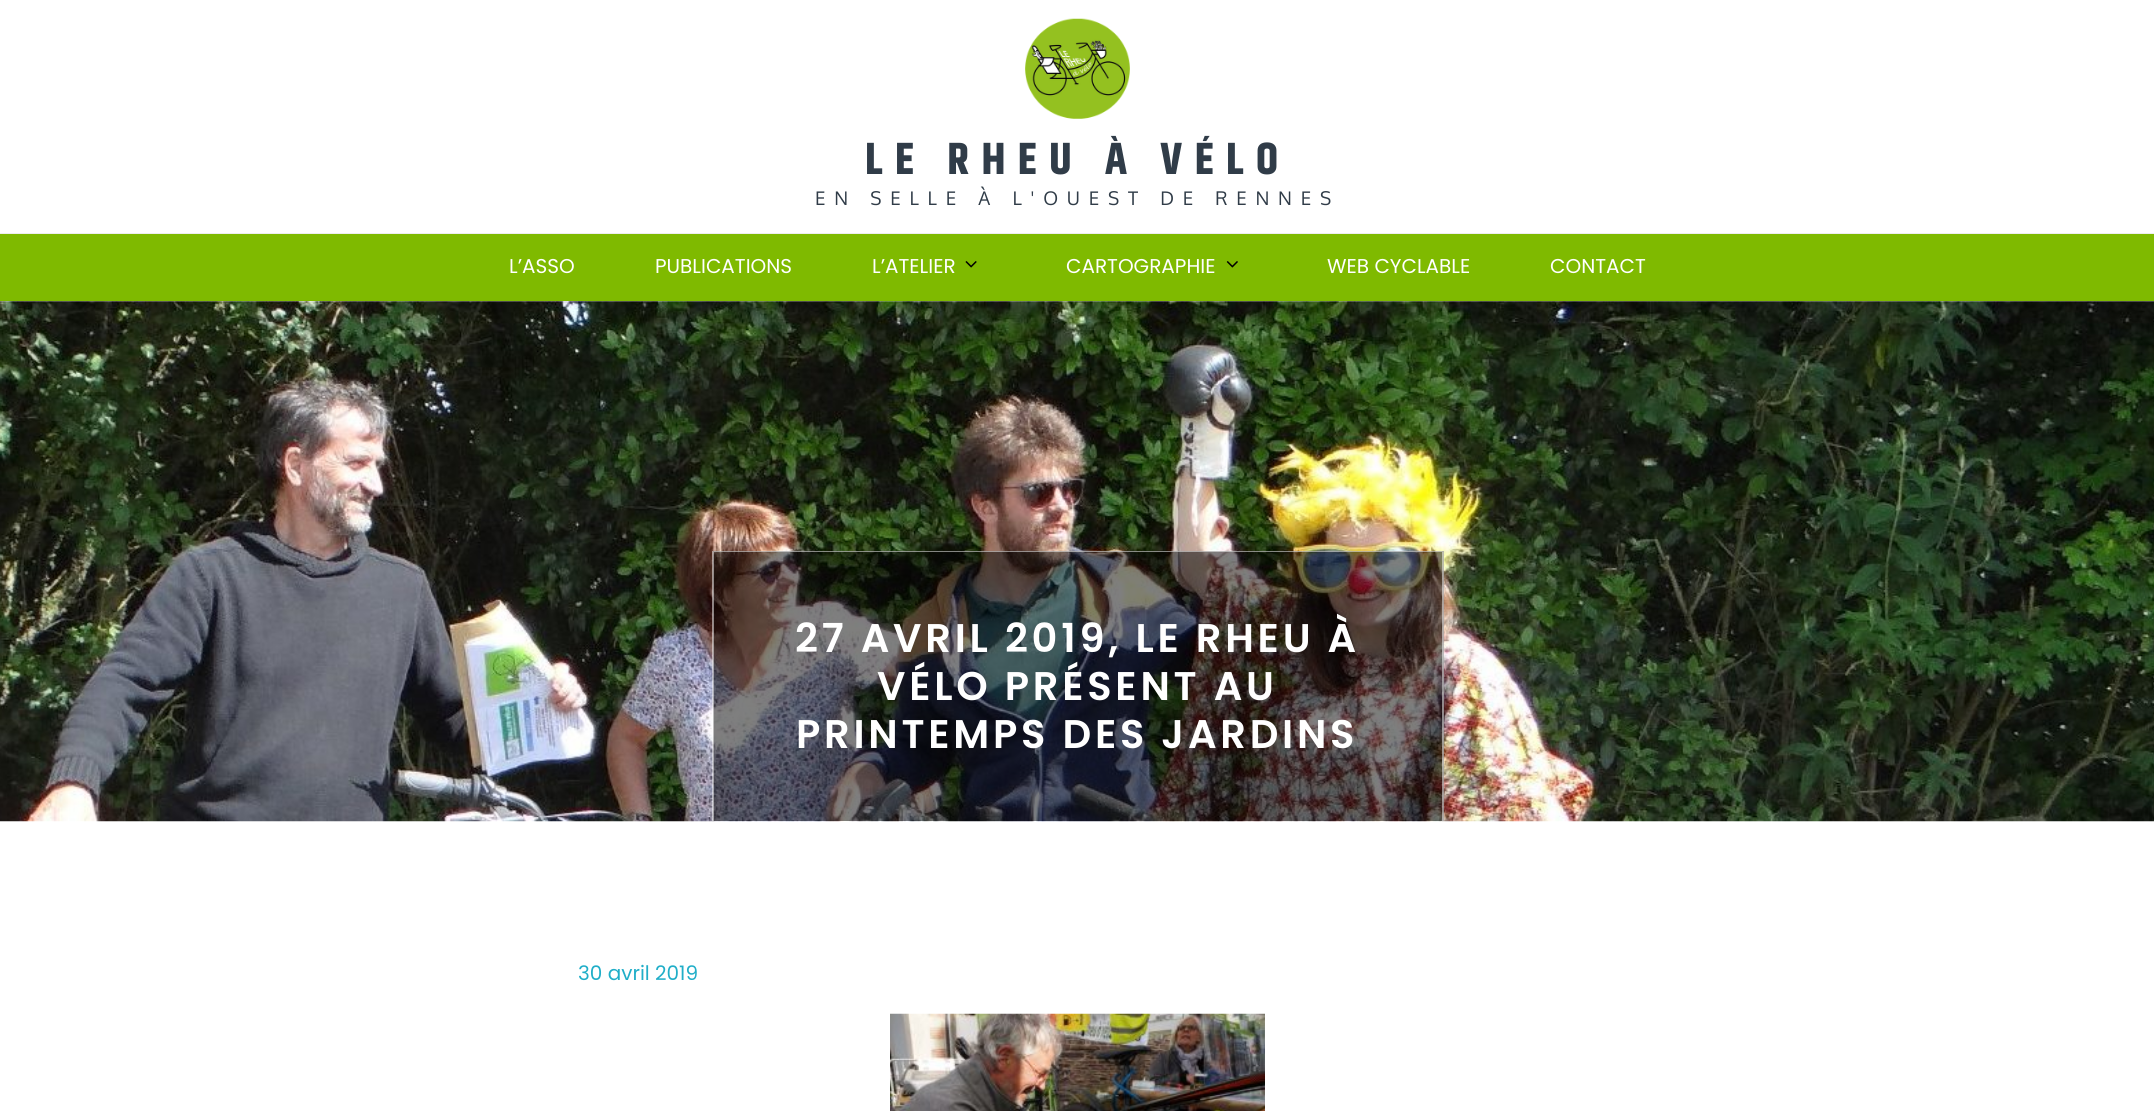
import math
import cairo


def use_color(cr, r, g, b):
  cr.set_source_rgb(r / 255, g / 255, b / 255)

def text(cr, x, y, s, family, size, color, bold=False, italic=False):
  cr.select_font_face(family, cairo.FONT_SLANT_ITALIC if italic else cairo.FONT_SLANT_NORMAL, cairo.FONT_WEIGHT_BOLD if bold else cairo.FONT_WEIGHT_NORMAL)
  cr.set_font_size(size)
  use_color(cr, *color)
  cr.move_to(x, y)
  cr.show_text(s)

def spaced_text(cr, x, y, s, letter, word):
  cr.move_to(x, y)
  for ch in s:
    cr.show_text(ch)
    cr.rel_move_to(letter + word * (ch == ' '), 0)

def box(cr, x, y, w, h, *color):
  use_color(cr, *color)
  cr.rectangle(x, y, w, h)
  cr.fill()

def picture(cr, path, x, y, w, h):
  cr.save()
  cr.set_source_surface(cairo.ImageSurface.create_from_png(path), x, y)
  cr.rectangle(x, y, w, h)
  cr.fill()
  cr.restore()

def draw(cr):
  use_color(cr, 255, 255, 255)
  cr.paint()
  picture(cr, "img_01.png", 1025, 18, 105, 101)
  box(cr, 0, 233, 2154, 1, 238, 238, 238)
  box(cr, 0, 234, 2154, 67, 127, 186, 0)
  picture(cr, "img_02.png", 965, 261, 12, 7)
  picture(cr, "img_03.png", 1226, 261, 12, 7)
  picture(cr, "img_04.png", 0, 301, 2154, 521)
  cr.set_source_rgba(0, 0, 0, 0.5)
  cr.rectangle(713, 551, 731, 270)
  cr.fill()
  cr.set_source_rgba(1, 1, 1, 0.5)
  cr.new_path()
  cr.move_to(712, 551)
  cr.line_to(1444, 551)
  cr.line_to(1442, 552)
  cr.line_to(714, 552)
  cr.close_path()
  cr.fill()
  cr.new_path()
  cr.move_to(1444, 551)
  cr.line_to(1444, 821)
  cr.line_to(1442, 821)
  cr.line_to(1442, 552)
  cr.close_path()
  cr.fill()
  cr.new_path()
  cr.move_to(712, 821)
  cr.line_to(712, 551)
  cr.line_to(714, 552)
  cr.line_to(714, 821)
  cr.close_path()
  cr.fill()
  picture(cr, "img_05.png", 890, 1013, 375, 98)
  cr.select_font_face("Khand", cairo.FONT_SLANT_NORMAL, cairo.FONT_WEIGHT_BOLD)
  cr.set_font_size(45)
  use_color(cr, 48, 60, 72)
  spaced_text(cr, 865, 174, "LE RHEU À VÉLO", 12.5, 0)
  cr.select_font_face("Oxygen")
  cr.set_font_size(18.75)
  spaced_text(cr, 815, 205, "EN SELLE À L'OUEST DE RENNES", 8.75, 0)
  text(cr, 509, 273, "L’ASSO", "Poppins", 20, (255, 255, 255))
  text(cr, 655, 273, "PUBLICATIONS", "Poppins", 20, (255, 255, 255))
  text(cr, 872, 273, "L’ATELIER", "Poppins", 20, (255, 255, 255))
  text(cr, 1066, 273, "CARTOGRAPHIE", "Poppins", 20, (255, 255, 255))
  text(cr, 1327, 273, "WEB CYCLABLE", "Poppins", 20, (255, 255, 255))
  text(cr, 1550, 273, "CONTACT", "Poppins", 20, (255, 255, 255))
  cr.select_font_face("Poppins SemiBold")
  cr.set_font_size(40)
  spaced_text(cr, 795, 652, "27 AVRIL 2019, LE RHEU À", 3.75, 0)
  spaced_text(cr, 877, 700, "VÉLO PRÉSENT AU", 3.75, 0)
  spaced_text(cr, 796, 748, "PRINTEMPS DES JARDINS", 3.75, 0)
  text(cr, 578, 980, "30 avril 2019", "Poppins", 20, (32, 174, 200))


surface = cairo.ImageSurface(cairo.FORMAT_RGB24, 2154, 1111)
cr = cairo.Context(surface)
options = cairo.FontOptions()
options.set_hint_metrics(cairo.HINT_METRICS_OFF)
options.set_hint_style(cairo.HINT_STYLE_NONE)
cr.set_font_options(options)
cr.set_miter_limit(4)
draw(cr)
surface.write_to_png("out.png")
